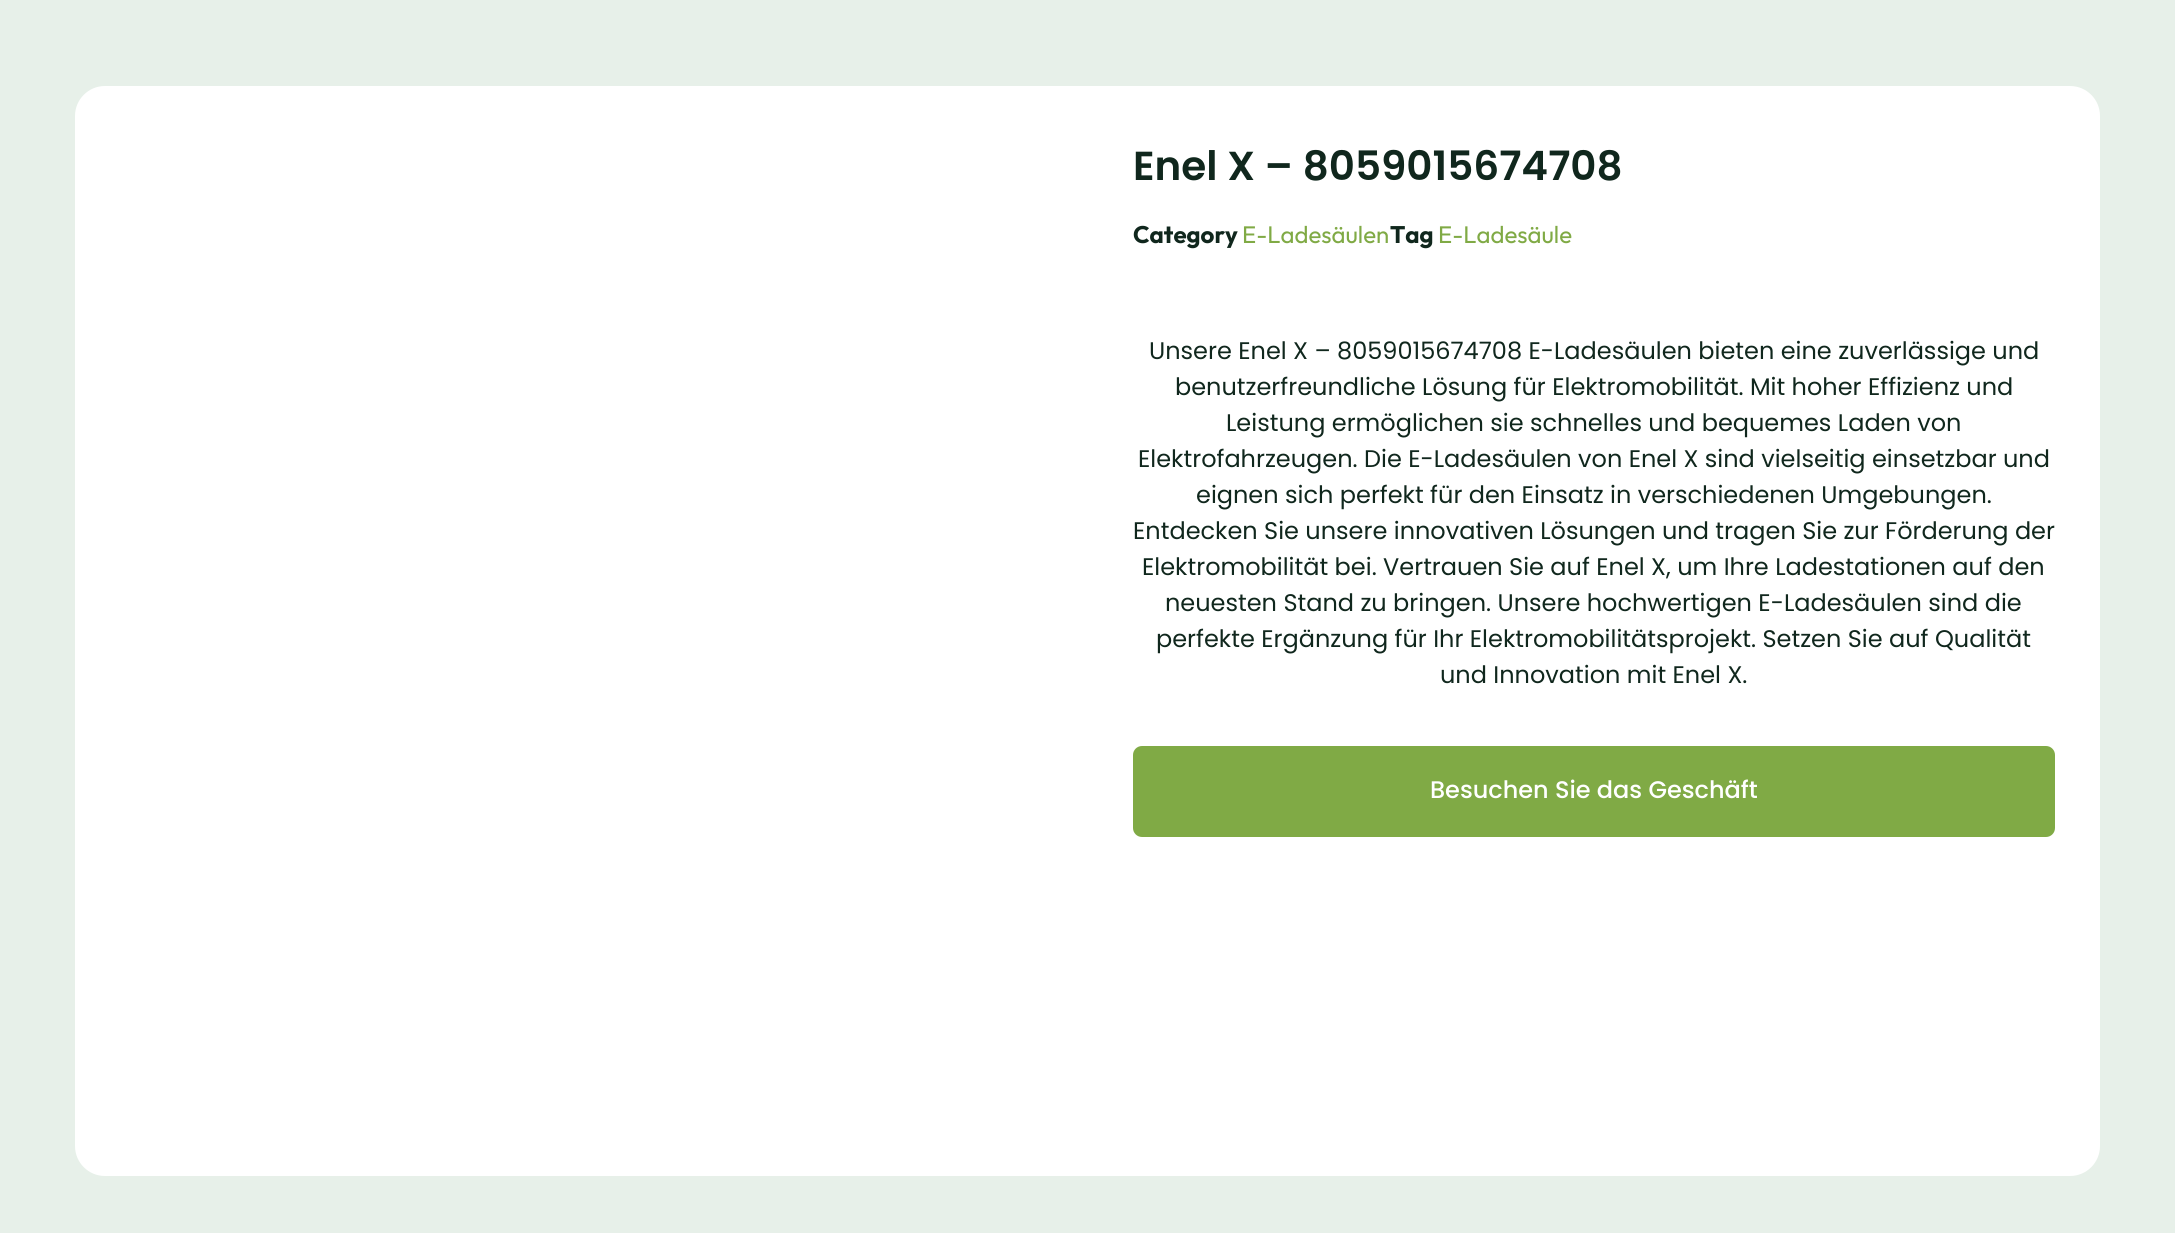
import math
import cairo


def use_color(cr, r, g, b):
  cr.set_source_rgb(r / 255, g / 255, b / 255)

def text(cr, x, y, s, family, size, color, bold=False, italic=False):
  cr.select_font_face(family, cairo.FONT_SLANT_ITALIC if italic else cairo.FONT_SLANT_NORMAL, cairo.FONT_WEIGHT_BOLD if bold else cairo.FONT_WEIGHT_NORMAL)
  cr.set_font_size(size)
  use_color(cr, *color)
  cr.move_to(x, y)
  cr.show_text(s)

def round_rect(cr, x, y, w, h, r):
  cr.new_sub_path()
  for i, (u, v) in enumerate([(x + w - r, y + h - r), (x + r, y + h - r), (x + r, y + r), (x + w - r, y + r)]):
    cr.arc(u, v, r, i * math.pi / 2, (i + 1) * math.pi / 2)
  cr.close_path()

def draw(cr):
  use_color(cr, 231, 240, 233)
  cr.paint()
  use_color(cr, 255, 255, 255)
  round_rect(cr, 75, 86, 2025, 1090, 30)
  cr.fill()
  use_color(cr, 128, 170, 69)
  round_rect(cr, 1133, 746, 922, 91, 9)
  cr.fill()
  text(cr, 1133, 180, "Enel X – 8059015674708", "Poppins SemiBold", 40.5, (16, 39, 29))
  text(cr, 1133, 243, "Category", "Outfit", 24, (16, 39, 29), bold=True)
  text(cr, 1242, 243, "E-Ladesäulen", "Outfit", 24, (128, 170, 69))
  text(cr, 1390, 243, "Tag", "Outfit", 24, (16, 39, 29), bold=True)
  text(cr, 1438, 243, "E-Ladesäule", "Outfit", 24, (128, 170, 69))
  text(cr, 1149, 359, "Unsere Enel X – 8059015674708 E-Ladesäulen bieten eine zuverlässige und", "Poppins", 24, (16, 39, 29))
  text(cr, 1175, 395, "benutzerfreundliche Lösung für Elektromobilität. Mit hoher Effizienz und", "Poppins", 24, (16, 39, 29))
  text(cr, 1226, 431, "Leistung ermöglichen sie schnelles und bequemes Laden von", "Poppins", 24, (16, 39, 29))
  text(cr, 1138, 467, "Elektrofahrzeugen. Die E-Ladesäulen von Enel X sind vielseitig einsetzbar und", "Poppins", 24, (16, 39, 29))
  text(cr, 1196, 503, "eignen sich perfekt für den Einsatz in verschiedenen Umgebungen.", "Poppins", 24, (16, 39, 29))
  text(cr, 1133, 539, "Entdecken Sie unsere innovativen Lösungen und tragen Sie zur Förderung der", "Poppins", 24, (16, 39, 29))
  text(cr, 1142, 575, "Elektromobilität bei. Vertrauen Sie auf Enel X, um Ihre Ladestationen auf den", "Poppins", 24, (16, 39, 29))
  text(cr, 1165, 611, "neuesten Stand zu bringen. Unsere hochwertigen E-Ladesäulen sind die", "Poppins", 24, (16, 39, 29))
  text(cr, 1156, 647, "perfekte Ergänzung für Ihr Elektromobilitätsprojekt. Setzen Sie auf Qualität", "Poppins", 24, (16, 39, 29))
  text(cr, 1440, 683, "und Innovation mit Enel X.", "Poppins", 24, (16, 39, 29))
  text(cr, 1430, 798, "Besuchen Sie das Geschäft", "Poppins Medium", 24, (255, 255, 255))


surface = cairo.ImageSurface(cairo.FORMAT_RGB24, 2175, 1233)
cr = cairo.Context(surface)
options = cairo.FontOptions()
options.set_hint_metrics(cairo.HINT_METRICS_OFF)
options.set_hint_style(cairo.HINT_STYLE_NONE)
cr.set_font_options(options)
cr.set_miter_limit(4)
draw(cr)
surface.write_to_png("out.png")
